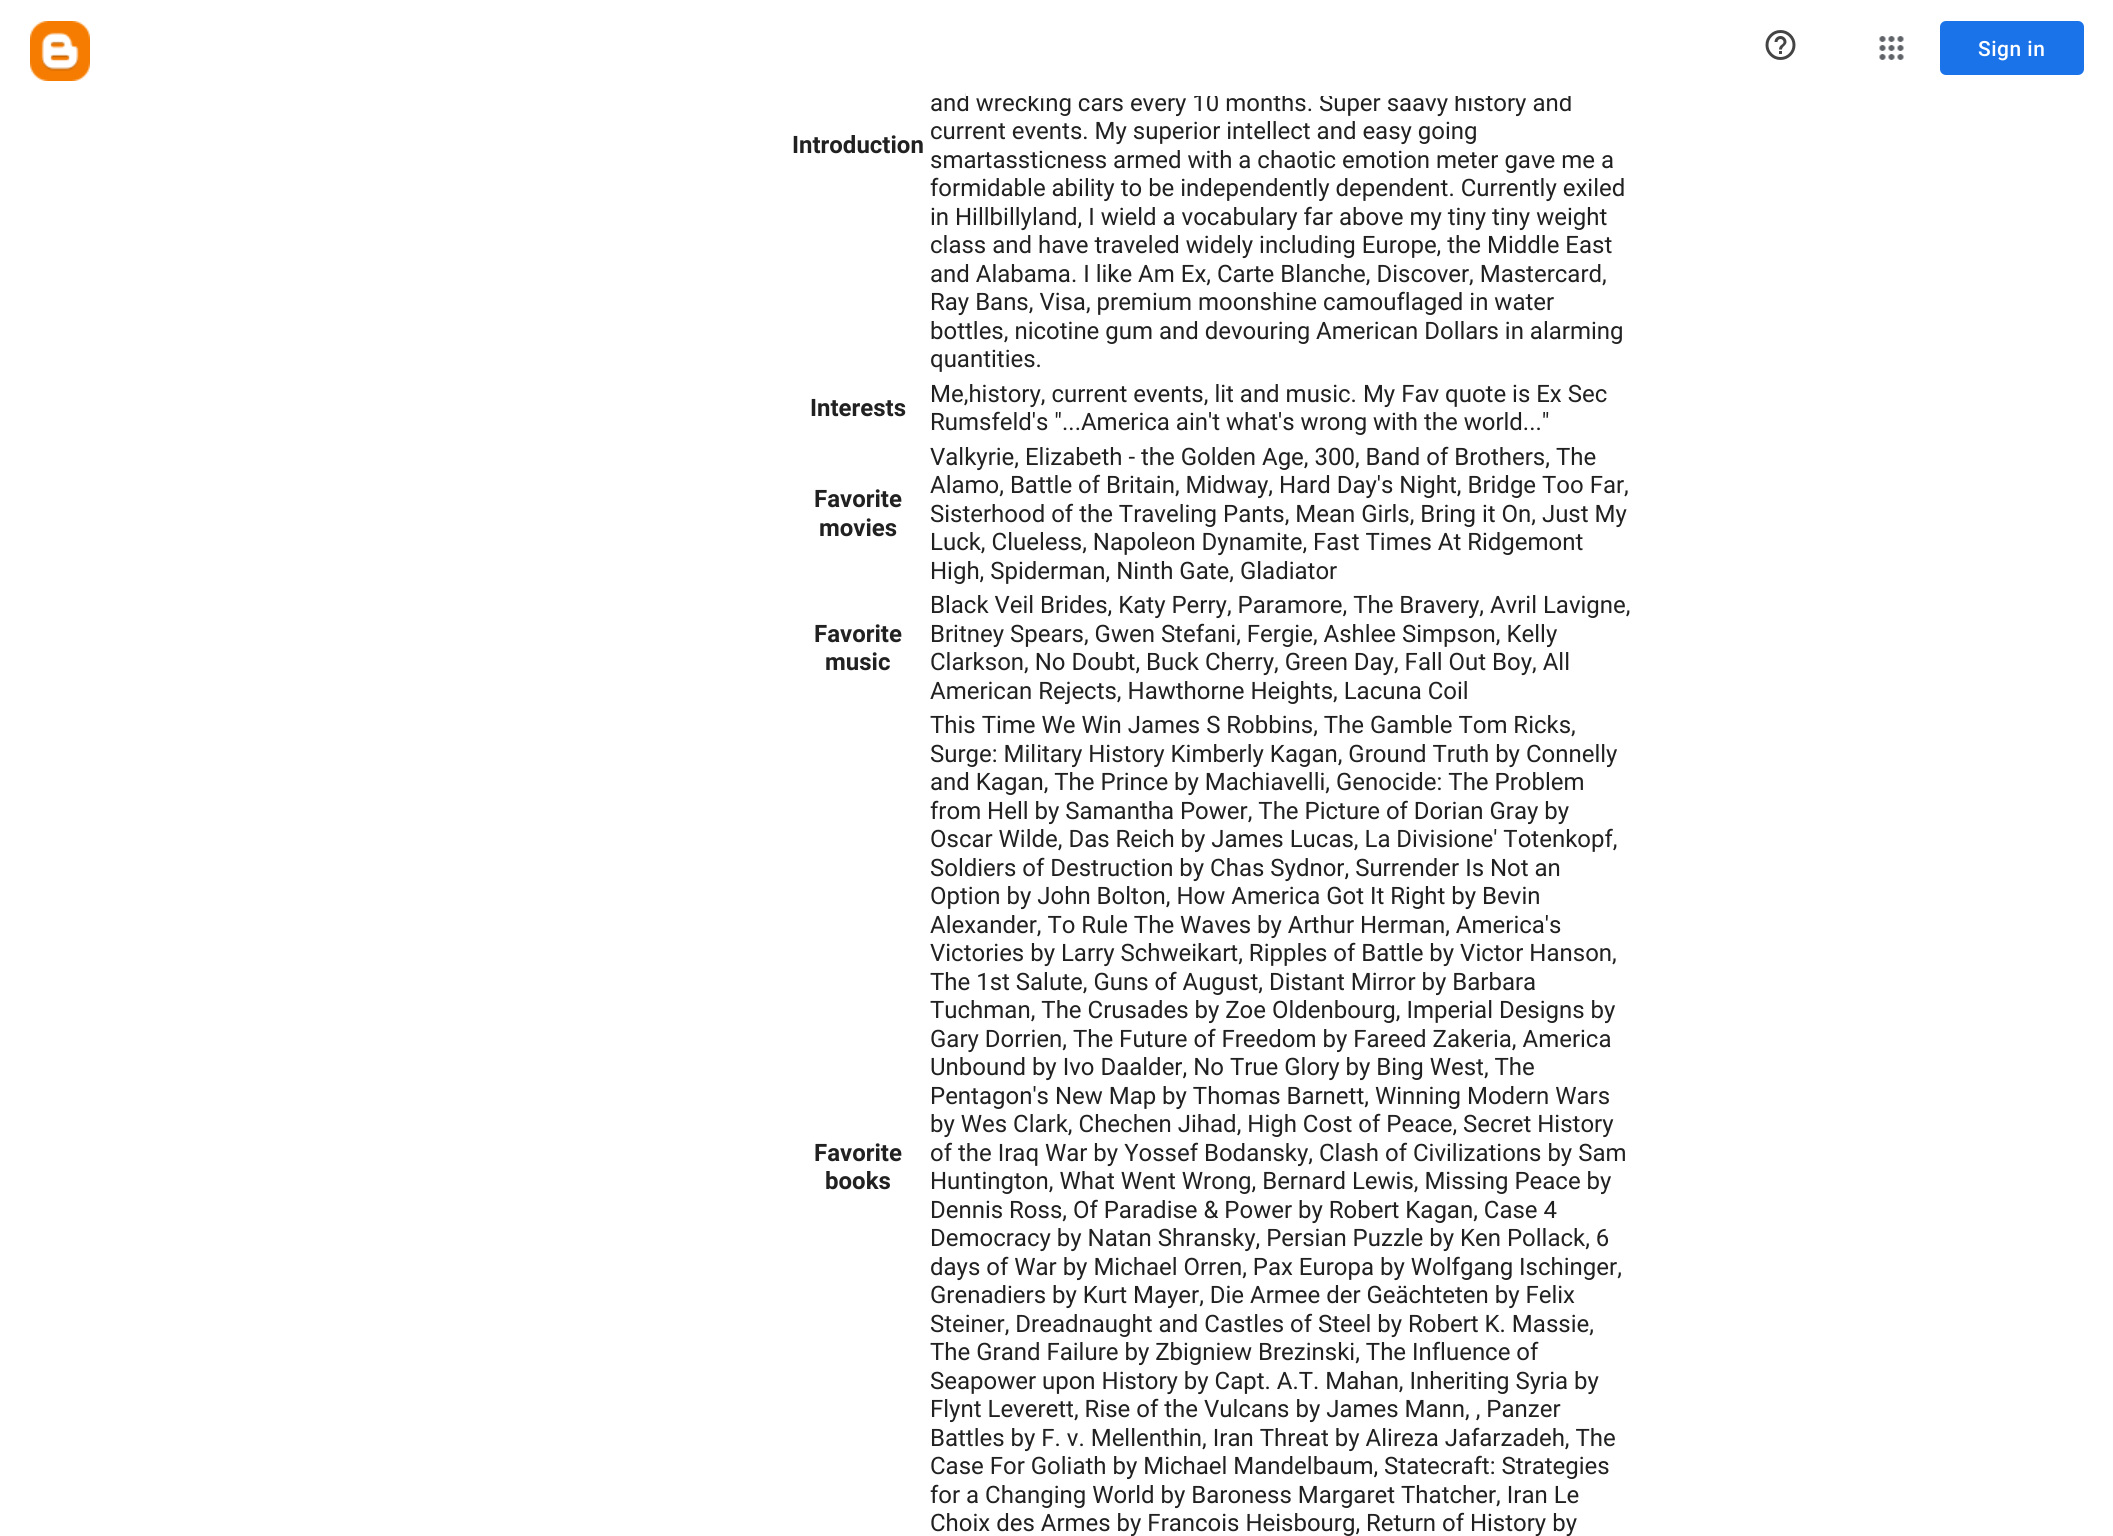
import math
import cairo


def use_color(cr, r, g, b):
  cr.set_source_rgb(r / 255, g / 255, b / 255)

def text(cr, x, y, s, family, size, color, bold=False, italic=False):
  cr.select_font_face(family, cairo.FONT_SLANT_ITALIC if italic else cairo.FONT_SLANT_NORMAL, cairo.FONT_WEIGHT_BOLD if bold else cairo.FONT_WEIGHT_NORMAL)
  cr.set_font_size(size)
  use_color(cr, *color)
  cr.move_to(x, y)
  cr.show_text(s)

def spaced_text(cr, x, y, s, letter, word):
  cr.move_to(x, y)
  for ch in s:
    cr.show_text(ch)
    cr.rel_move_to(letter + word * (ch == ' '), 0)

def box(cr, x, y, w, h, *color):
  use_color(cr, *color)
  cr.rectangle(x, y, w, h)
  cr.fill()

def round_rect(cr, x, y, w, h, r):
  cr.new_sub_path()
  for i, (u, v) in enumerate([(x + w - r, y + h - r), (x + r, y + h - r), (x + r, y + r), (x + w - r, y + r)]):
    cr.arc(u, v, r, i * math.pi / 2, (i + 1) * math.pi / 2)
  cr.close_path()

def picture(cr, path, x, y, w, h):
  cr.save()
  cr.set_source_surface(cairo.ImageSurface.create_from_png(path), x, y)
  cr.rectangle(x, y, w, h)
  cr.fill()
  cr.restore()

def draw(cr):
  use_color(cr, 255, 255, 255)
  cr.paint()
  picture(cr, "img_01.png", 30, 21, 60, 60)
  picture(cr, "img_02.png", 1765, 30, 31, 30)
  picture(cr, "img_03.png", 1879, 36, 25, 24)
  use_color(cr, 26, 115, 232)
  round_rect(cr, 1940, 21, 144, 54, 6)
  cr.fill()
  cr.select_font_face("Roboto Medium")
  cr.set_font_size(21)
  use_color(cr, 255, 255, 255)
  spaced_text(cr, 1978, 56, "Sign in", 0.5, 0)
  text(cr, 792, 153, "Introduction", "Roboto", 24, (33, 33, 33), bold=True)
  text(cr, 930, 111, "and wrecking cars every 10 months. Super saavy history and", "Roboto", 24, (33, 33, 33))
  box(cr, 966, 93, 605, 3, 255, 255, 255)
  text(cr, 930, 139, "current events. My superior intellect and easy going", "Roboto", 24, (33, 33, 33))
  text(cr, 930, 168, "smartassticness armed with a chaotic emotion meter gave me a", "Roboto", 24, (33, 33, 33))
  text(cr, 930, 196, "formidable ability to be independently dependent. Currently exiled", "Roboto", 24, (33, 33, 33))
  text(cr, 930, 225, "in Hillbillyland, I wield a vocabulary far above my tiny tiny weight", "Roboto", 24, (33, 33, 33))
  text(cr, 930, 253, "class and have traveled widely including Europe, the Middle East", "Roboto", 24, (33, 33, 33))
  text(cr, 930, 282, "and Alabama. I like Am Ex, Carte Blanche, Discover, Mastercard,", "Roboto", 24, (33, 33, 33))
  text(cr, 930, 310, "Ray Bans, Visa, premium moonshine camouflaged in water", "Roboto", 24, (33, 33, 33))
  text(cr, 930, 339, "bottles, nicotine gum and devouring American Dollars in alarming", "Roboto", 24, (33, 33, 33))
  text(cr, 930, 367, "quantities.", "Roboto", 24, (33, 33, 33))
  text(cr, 810, 416, "Interests", "Roboto", 24, (33, 33, 33), bold=True)
  text(cr, 930, 402, "Me,history, current events, lit and music. My Fav quote is Ex Sec", "Roboto", 24, (33, 33, 33))
  text(cr, 930, 430, "Rumsfeld's \"...America ain't what's wrong with the world...\"", "Roboto", 24, (33, 33, 33))
  text(cr, 814, 507, "Favorite", "Roboto", 24, (33, 33, 33), bold=True)
  text(cr, 819, 536, "movies", "Roboto", 24, (33, 33, 33), bold=True)
  text(cr, 930, 465, "Valkyrie, Elizabeth - the Golden Age, 300, Band of Brothers, The", "Roboto", 24, (33, 33, 33))
  text(cr, 930, 493, "Alamo, Battle of Britain, Midway, Hard Day's Night, Bridge Too Far,", "Roboto", 24, (33, 33, 33))
  text(cr, 930, 522, "Sisterhood of the Traveling Pants, Mean Girls, Bring it On, Just My", "Roboto", 24, (33, 33, 33))
  text(cr, 930, 550, "Luck, Clueless, Napoleon Dynamite, Fast Times At Ridgemont", "Roboto", 24, (33, 33, 33))
  text(cr, 930, 579, "High, Spiderman, Ninth Gate, Gladiator", "Roboto", 24, (33, 33, 33))
  text(cr, 814, 642, "Favorite", "Roboto", 24, (33, 33, 33), bold=True)
  text(cr, 825, 670, "music", "Roboto", 24, (33, 33, 33), bold=True)
  text(cr, 930, 613, "Black Veil Brides, Katy Perry, Paramore, The Bravery, Avril Lavigne,", "Roboto", 24, (33, 33, 33))
  text(cr, 930, 642, "Britney Spears, Gwen Stefani, Fergie, Ashlee Simpson, Kelly", "Roboto", 24, (33, 33, 33))
  text(cr, 930, 670, "Clarkson, No Doubt, Buck Cherry, Green Day, Fall Out Boy, All", "Roboto", 24, (33, 33, 33))
  text(cr, 930, 699, "American Rejects, Hawthorne Heights, Lacuna Coil", "Roboto", 24, (33, 33, 33))
  text(cr, 814, 1161, "Favorite", "Roboto", 24, (33, 33, 33), bold=True)
  text(cr, 825, 1189, "books", "Roboto", 24, (33, 33, 33), bold=True)
  text(cr, 930, 733, "This Time We Win James S Robbins, The Gamble Tom Ricks,", "Roboto", 24, (33, 33, 33))
  text(cr, 930, 762, "Surge: Military History Kimberly Kagan, Ground Truth by Connelly", "Roboto", 24, (33, 33, 33))
  text(cr, 930, 790, "and Kagan, The Prince by Machiavelli, Genocide: The Problem", "Roboto", 24, (33, 33, 33))
  text(cr, 930, 819, "from Hell by Samantha Power, The Picture of Dorian Gray by", "Roboto", 24, (33, 33, 33))
  text(cr, 930, 847, "Oscar Wilde, Das Reich by James Lucas, La Divisione' Totenkopf,", "Roboto", 24, (33, 33, 33))
  text(cr, 930, 876, "Soldiers of Destruction by Chas Sydnor, Surrender Is Not an", "Roboto", 24, (33, 33, 33))
  text(cr, 930, 904, "Option by John Bolton, How America Got It Right by Bevin", "Roboto", 24, (33, 33, 33))
  text(cr, 930, 933, "Alexander, To Rule The Waves by Arthur Herman, America's", "Roboto", 24, (33, 33, 33))
  text(cr, 930, 961, "Victories by Larry Schweikart, Ripples of Battle by Victor Hanson,", "Roboto", 24, (33, 33, 33))
  text(cr, 930, 990, "The 1st Salute, Guns of August, Distant Mirror by Barbara", "Roboto", 24, (33, 33, 33))
  text(cr, 930, 1018, "Tuchman, The Crusades by Zoe Oldenbourg, Imperial Designs by", "Roboto", 24, (33, 33, 33))
  text(cr, 930, 1047, "Gary Dorrien, The Future of Freedom by Fareed Zakeria, America", "Roboto", 24, (33, 33, 33))
  text(cr, 930, 1075, "Unbound by Ivo Daalder, No True Glory by Bing West, The", "Roboto", 24, (33, 33, 33))
  text(cr, 930, 1104, "Pentagon's New Map by Thomas Barnett, Winning Modern Wars", "Roboto", 24, (33, 33, 33))
  text(cr, 930, 1132, "by Wes Clark, Chechen Jihad, High Cost of Peace, Secret History", "Roboto", 24, (33, 33, 33))
  text(cr, 930, 1161, "of the Iraq War by Yossef Bodansky, Clash of Civilizations by Sam", "Roboto", 24, (33, 33, 33))
  text(cr, 930, 1189, "Huntington, What Went Wrong, Bernard Lewis, Missing Peace by", "Roboto", 24, (33, 33, 33))
  text(cr, 930, 1218, "Dennis Ross, Of Paradise & Power by Robert Kagan, Case 4", "Roboto", 24, (33, 33, 33))
  text(cr, 930, 1246, "Democracy by Natan Shransky, Persian Puzzle by Ken Pollack, 6", "Roboto", 24, (33, 33, 33))
  text(cr, 930, 1275, "days of War by Michael Orren, Pax Europa by Wolfgang Ischinger,", "Roboto", 24, (33, 33, 33))
  text(cr, 930, 1303, "Grenadiers by Kurt Mayer, Die Armee der Geächteten by Felix", "Roboto", 24, (33, 33, 33))
  text(cr, 930, 1332, "Steiner, Dreadnaught and Castles of Steel by Robert K. Massie,", "Roboto", 24, (33, 33, 33))
  text(cr, 930, 1360, "The Grand Failure by Zbigniew Brezinski, The Influence of", "Roboto", 24, (33, 33, 33))
  text(cr, 930, 1389, "Seapower upon History by Capt. A.T. Mahan, Inheriting Syria by", "Roboto", 24, (33, 33, 33))
  text(cr, 930, 1417, "Flynt Leverett, Rise of the Vulcans by James Mann, , Panzer", "Roboto", 24, (33, 33, 33))
  text(cr, 930, 1446, "Battles by F. v. Mellenthin, Iran Threat by Alireza Jafarzadeh, The", "Roboto", 24, (33, 33, 33))
  text(cr, 930, 1474, "Case For Goliath by Michael Mandelbaum, Statecraft: Strategies", "Roboto", 24, (33, 33, 33))
  text(cr, 930, 1503, "for a Changing World by Baroness Margaret Thatcher, Iran Le", "Roboto", 24, (33, 33, 33))
  text(cr, 930, 1531, "Choix des Armes by Francois Heisbourg, Return of History by", "Roboto", 24, (33, 33, 33))


surface = cairo.ImageSurface(cairo.FORMAT_RGB24, 2113, 1536)
cr = cairo.Context(surface)
options = cairo.FontOptions()
options.set_hint_metrics(cairo.HINT_METRICS_OFF)
options.set_hint_style(cairo.HINT_STYLE_NONE)
cr.set_font_options(options)
cr.set_miter_limit(4)
draw(cr)
surface.write_to_png("out.png")
